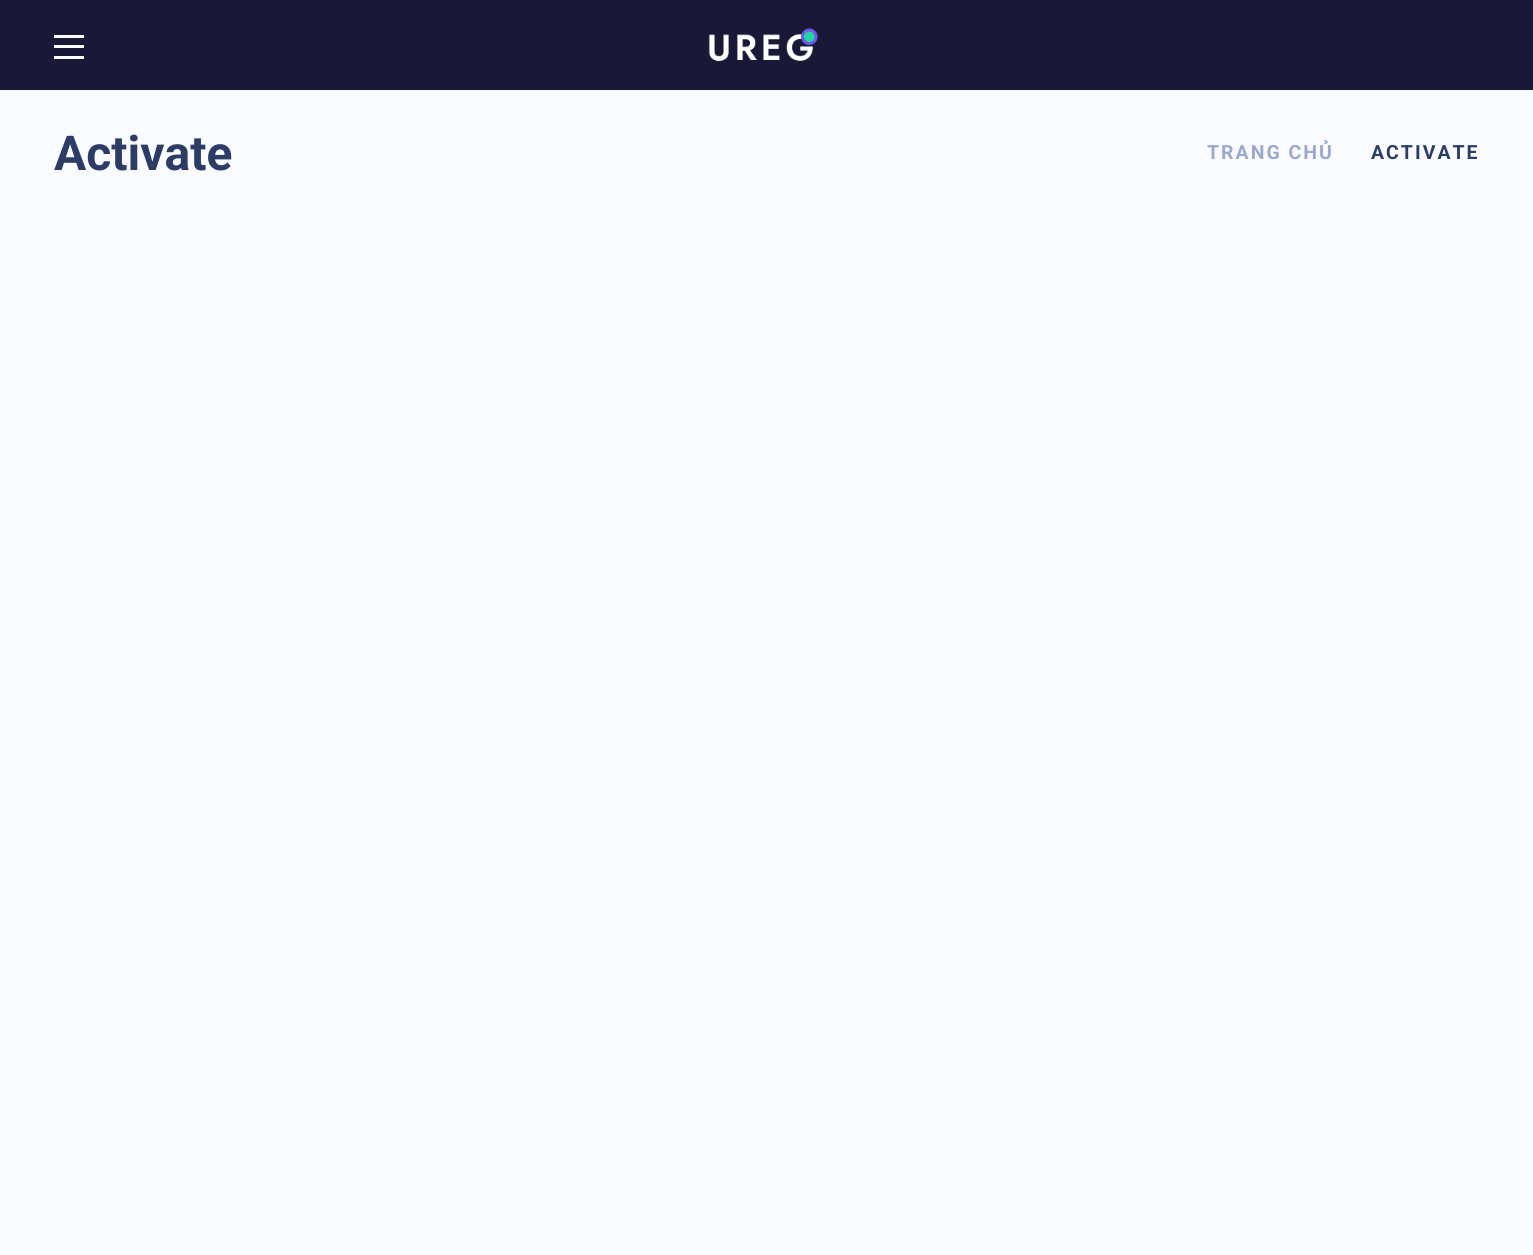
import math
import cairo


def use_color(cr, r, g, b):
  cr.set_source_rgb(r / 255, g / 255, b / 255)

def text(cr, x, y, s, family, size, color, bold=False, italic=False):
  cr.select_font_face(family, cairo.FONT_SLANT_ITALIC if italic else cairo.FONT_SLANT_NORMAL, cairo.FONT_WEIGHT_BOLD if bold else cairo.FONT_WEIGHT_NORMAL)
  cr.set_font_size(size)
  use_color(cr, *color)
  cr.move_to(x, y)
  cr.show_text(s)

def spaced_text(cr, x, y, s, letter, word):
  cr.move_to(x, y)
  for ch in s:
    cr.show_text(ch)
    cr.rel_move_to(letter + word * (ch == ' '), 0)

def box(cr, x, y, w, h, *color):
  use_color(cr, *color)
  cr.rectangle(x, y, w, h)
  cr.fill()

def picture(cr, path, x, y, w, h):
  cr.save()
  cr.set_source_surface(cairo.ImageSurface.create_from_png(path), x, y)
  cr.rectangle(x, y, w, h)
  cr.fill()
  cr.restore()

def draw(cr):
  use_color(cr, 250, 251, 255)
  cr.paint()
  box(cr, 0, 0, 1533, 90, 25, 25, 55)
  box(cr, 54, 35, 30, 3, 255, 255, 255)
  box(cr, 54, 45, 30, 3, 255, 255, 255)
  box(cr, 54, 56, 30, 3, 255, 255, 255)
  picture(cr, "img_01.png", 708, 28, 110, 34)
  text(cr, 54, 170, "Activate", "Roboto", 48, (44, 60, 101), bold=True)
  cr.set_font_size(19.5)
  use_color(cr, 156, 169, 204)
  spaced_text(cr, 1207, 159, "TRANG CHỦ", 2, 0)
  use_color(cr, 44, 60, 101)
  spaced_text(cr, 1371, 159, "ACTIVATE", 2, 0)


surface = cairo.ImageSurface(cairo.FORMAT_RGB24, 1533, 1255)
cr = cairo.Context(surface)
options = cairo.FontOptions()
options.set_hint_metrics(cairo.HINT_METRICS_OFF)
options.set_hint_style(cairo.HINT_STYLE_NONE)
cr.set_font_options(options)
cr.set_miter_limit(4)
draw(cr)
surface.write_to_png("out.png")
